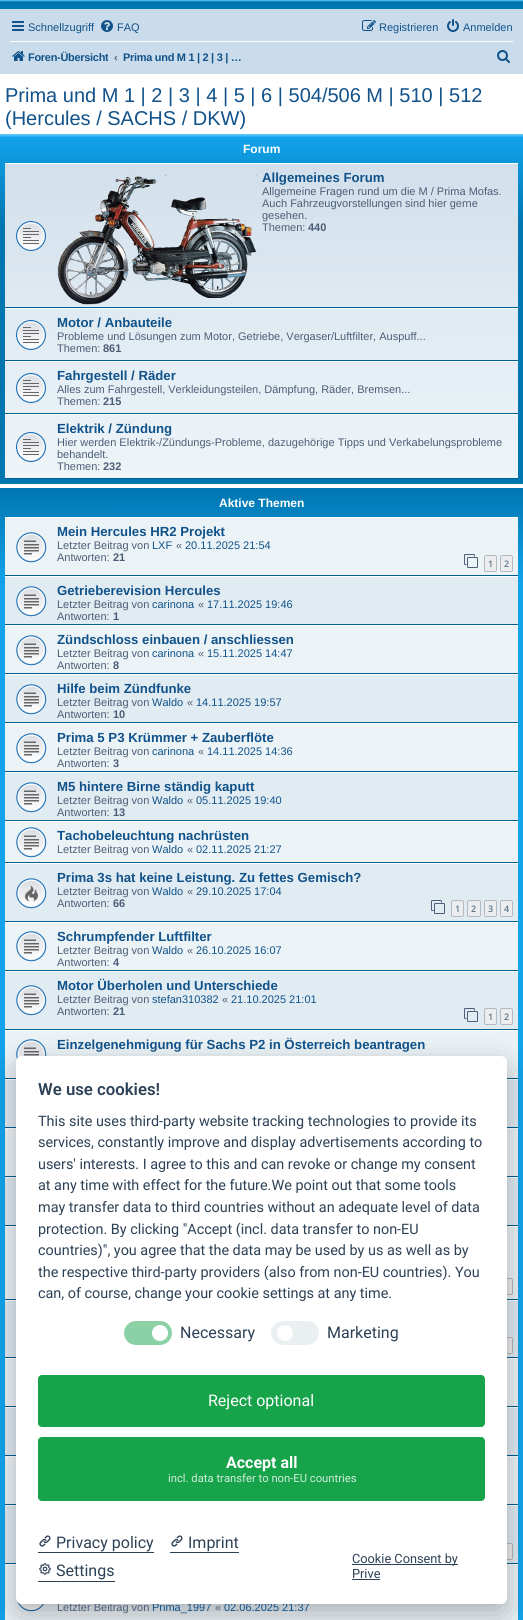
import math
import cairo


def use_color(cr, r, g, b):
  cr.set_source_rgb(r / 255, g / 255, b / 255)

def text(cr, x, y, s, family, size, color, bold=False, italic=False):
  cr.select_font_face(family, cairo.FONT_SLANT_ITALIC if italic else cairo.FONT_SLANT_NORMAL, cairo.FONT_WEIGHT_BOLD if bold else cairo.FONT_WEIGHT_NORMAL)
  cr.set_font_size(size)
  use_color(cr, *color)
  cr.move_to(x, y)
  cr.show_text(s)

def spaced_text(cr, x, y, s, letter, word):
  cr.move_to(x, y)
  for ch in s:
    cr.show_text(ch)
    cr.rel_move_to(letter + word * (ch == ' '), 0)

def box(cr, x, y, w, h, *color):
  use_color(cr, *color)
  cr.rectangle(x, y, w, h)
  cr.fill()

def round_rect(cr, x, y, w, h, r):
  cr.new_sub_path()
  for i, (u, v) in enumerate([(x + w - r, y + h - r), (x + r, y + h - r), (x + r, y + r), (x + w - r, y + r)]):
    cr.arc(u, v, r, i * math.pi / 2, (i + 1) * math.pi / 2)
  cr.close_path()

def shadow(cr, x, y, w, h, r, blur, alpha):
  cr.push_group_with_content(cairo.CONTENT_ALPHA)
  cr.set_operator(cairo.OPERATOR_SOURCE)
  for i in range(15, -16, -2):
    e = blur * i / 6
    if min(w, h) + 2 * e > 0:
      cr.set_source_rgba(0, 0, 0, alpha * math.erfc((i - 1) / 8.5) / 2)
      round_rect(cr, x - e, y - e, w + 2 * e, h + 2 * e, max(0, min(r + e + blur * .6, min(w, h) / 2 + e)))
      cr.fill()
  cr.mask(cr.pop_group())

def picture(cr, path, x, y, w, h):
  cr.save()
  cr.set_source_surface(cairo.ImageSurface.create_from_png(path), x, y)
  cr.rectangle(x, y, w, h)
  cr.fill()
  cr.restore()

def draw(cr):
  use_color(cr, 255, 255, 255)
  cr.paint()
  gradient = cairo.LinearGradient(262, 0, 262, 92)
  gradient.add_color_stop_rgba(0, 0.416, 0.808, 1, 1)
  gradient.add_color_stop_rgba(0.02, 0, 0.463, 0.694, 1)
  gradient.add_color_stop_rgba(1, 0.071, 0.639, 0.922, 1)
  cr.set_source(gradient)
  cr.rectangle(0, 0, 523, 9)
  cr.fill()
  box(cr, 0, 9, 523, 65, 202, 220, 235)
  picture(cr, "img_01.png", 12, 21, 12, 10)
  picture(cr, "img_02.png", 101, 20, 12, 12)
  picture(cr, "img_03.png", 362, 20, 14, 11)
  picture(cr, "img_04.png", 447, 19, 12, 13)
  box(cr, 10, 41, 503, 1, 255, 255, 255)
  picture(cr, "img_05.png", 12, 51, 13, 10)
  picture(cr, "img_06.png", 497, 50, 13, 13)
  gradient = cairo.LinearGradient(262, 134, 262, 484)
  gradient.add_color_stop_rgba(0, 0.416, 0.808, 1, 1)
  gradient.add_color_stop_rgba(0.01, 0.071, 0.639, 0.922, 1)
  gradient.add_color_stop_rgba(0.26, 0, 0.463, 0.694, 1)
  gradient.add_color_stop_rgba(1, 0, 0.463, 0.694, 1)
  cr.set_source(gradient)
  cr.rectangle(0, 134, 523, 350)
  cr.fill()
  gradient = cairo.LinearGradient(262, 163, 262, 479)
  gradient.add_color_stop_rgba(0, 0.824, 0.878, 0.922, 1)
  gradient.add_color_stop_rgba(1, 0.933, 0.961, 0.976, 1)
  cr.set_source(gradient)
  cr.rectangle(5, 164, 513, 314)
  cr.fill()
  box(cr, 5, 163, 513, 1, 255, 255, 255)
  box(cr, 5, 307, 513, 1, 0, 96, 143)
  picture(cr, "img_07.png", 16, 221, 30, 30)
  picture(cr, "img_08.png", 57, 175, 200, 130)
  box(cr, 5, 308, 513, 1, 255, 255, 255)
  box(cr, 5, 360, 513, 1, 0, 96, 143)
  picture(cr, "img_09.png", 16, 320, 30, 30)
  box(cr, 5, 361, 513, 1, 255, 255, 255)
  box(cr, 5, 413, 513, 1, 0, 96, 143)
  picture(cr, "img_10.png", 16, 373, 30, 30)
  box(cr, 5, 414, 513, 1, 255, 255, 255)
  box(cr, 5, 478, 513, 1, 0, 96, 143)
  picture(cr, "img_11.png", 16, 432, 30, 30)
  gradient = cairo.LinearGradient(261, 488, 262, 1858)
  gradient.add_color_stop_rgba(0, 0.416, 0.808, 1, 1)
  gradient.add_color_stop_rgba(0, 0, 0.463, 0.694, 1)
  gradient.add_color_stop_rgba(0.07, 0.071, 0.639, 0.922, 1)
  gradient.add_color_stop_rgba(1, 0.071, 0.639, 0.922, 1)
  cr.set_source(gradient)
  cr.rectangle(0, 488, 523, 1132)
  cr.fill()
  box(cr, 5, 518, 513, 57, 236, 243, 247)
  box(cr, 5, 517, 513, 1, 255, 255, 255)
  box(cr, 5, 575, 513, 1, 0, 96, 143)
  picture(cr, "img_12.png", 16, 532, 31, 31)
  picture(cr, "img_13.png", 464, 554, 14, 14)
  use_color(cr, 236, 237, 238)
  round_rect(cr, 484.5, 555.5, 12, 16, 1.5)
  cr.fill_preserve()
  use_color(cr, 180, 186, 192)
  cr.set_line_width(1)
  cr.stroke()
  use_color(cr, 236, 237, 238)
  round_rect(cr, 500.5, 555.5, 12, 16, 1.5)
  cr.fill_preserve()
  use_color(cr, 180, 186, 192)
  cr.stroke()
  box(cr, 5, 577, 513, 47, 225, 235, 242)
  box(cr, 5, 576, 513, 1, 255, 255, 255)
  box(cr, 5, 624, 513, 1, 0, 96, 143)
  picture(cr, "img_14.png", 16, 586, 31, 31)
  box(cr, 5, 626, 513, 47, 236, 243, 247)
  box(cr, 5, 625, 513, 1, 255, 255, 255)
  box(cr, 5, 673, 513, 1, 0, 96, 143)
  picture(cr, "img_12.png", 16, 635, 31, 31)
  box(cr, 5, 675, 513, 47, 225, 235, 242)
  box(cr, 5, 674, 513, 1, 255, 255, 255)
  box(cr, 5, 722, 513, 1, 0, 96, 143)
  picture(cr, "img_14.png", 16, 684, 31, 31)
  box(cr, 5, 724, 513, 47, 236, 243, 247)
  box(cr, 5, 723, 513, 1, 255, 255, 255)
  box(cr, 5, 771, 513, 1, 0, 96, 143)
  picture(cr, "img_12.png", 16, 733, 31, 31)
  box(cr, 5, 773, 513, 47, 225, 235, 242)
  box(cr, 5, 772, 513, 1, 255, 255, 255)
  box(cr, 5, 820, 513, 1, 0, 96, 143)
  picture(cr, "img_14.png", 16, 782, 31, 31)
  box(cr, 5, 822, 513, 40, 236, 243, 247)
  box(cr, 5, 821, 513, 1, 255, 255, 255)
  box(cr, 5, 862, 513, 1, 0, 96, 143)
  picture(cr, "img_12.png", 16, 827, 31, 31)
  box(cr, 5, 864, 513, 57, 225, 235, 242)
  box(cr, 5, 863, 513, 1, 255, 255, 255)
  box(cr, 5, 921, 513, 1, 0, 96, 143)
  picture(cr, "img_15.png", 16, 878, 31, 31)
  picture(cr, "img_16.png", 431, 900, 14, 14)
  use_color(cr, 236, 237, 238)
  round_rect(cr, 451.5, 900.5, 12, 16, 1.5)
  cr.fill_preserve()
  use_color(cr, 180, 186, 192)
  cr.stroke()
  use_color(cr, 236, 237, 238)
  round_rect(cr, 467.5, 900.5, 13, 16, 1.5)
  cr.fill_preserve()
  use_color(cr, 180, 186, 192)
  cr.stroke()
  use_color(cr, 236, 237, 238)
  round_rect(cr, 484.5, 900.5, 12, 16, 1.5)
  cr.fill_preserve()
  use_color(cr, 180, 186, 192)
  cr.stroke()
  use_color(cr, 236, 237, 238)
  round_rect(cr, 500.5, 900.5, 12, 16, 1.5)
  cr.fill_preserve()
  use_color(cr, 180, 186, 192)
  cr.stroke()
  box(cr, 5, 923, 513, 47, 236, 243, 247)
  box(cr, 5, 922, 513, 1, 255, 255, 255)
  box(cr, 5, 970, 513, 1, 0, 96, 143)
  picture(cr, "img_12.png", 16, 931, 31, 31)
  box(cr, 5, 972, 513, 57, 225, 235, 242)
  box(cr, 5, 971, 513, 1, 255, 255, 255)
  box(cr, 5, 1029, 513, 1, 0, 96, 143)
  picture(cr, "img_14.png", 16, 985, 31, 31)
  picture(cr, "img_16.png", 464, 1008, 14, 14)
  use_color(cr, 236, 237, 238)
  round_rect(cr, 484.5, 1008.5, 12, 16, 1.5)
  cr.fill_preserve()
  use_color(cr, 180, 186, 192)
  cr.stroke()
  use_color(cr, 236, 237, 238)
  round_rect(cr, 500.5, 1008.5, 12, 16, 1.5)
  cr.fill_preserve()
  use_color(cr, 180, 186, 192)
  cr.stroke()
  box(cr, 5, 1031, 513, 47, 236, 243, 247)
  box(cr, 5, 1030, 513, 1, 255, 255, 255)
  box(cr, 5, 1078, 513, 1, 0, 96, 143)
  picture(cr, "img_17.png", 16, 1039, 31, 20)
  box(cr, 5, 1080, 513, 47, 225, 235, 242)
  box(cr, 5, 1079, 513, 1, 255, 255, 255)
  box(cr, 5, 1127, 513, 1, 0, 96, 143)
  box(cr, 5, 1129, 513, 47, 236, 243, 247)
  box(cr, 5, 1128, 513, 1, 255, 255, 255)
  box(cr, 5, 1176, 513, 1, 0, 96, 143)
  box(cr, 5, 1178, 513, 47, 225, 235, 242)
  box(cr, 5, 1177, 513, 1, 255, 255, 255)
  box(cr, 5, 1225, 513, 1, 0, 96, 143)
  box(cr, 5, 1227, 513, 72, 236, 243, 247)
  box(cr, 5, 1226, 513, 1, 255, 255, 255)
  box(cr, 5, 1299, 513, 1, 0, 96, 143)
  use_color(cr, 236, 237, 238)
  round_rect(cr, 500.5, 1278.5, 12, 16, 1.5)
  cr.fill_preserve()
  use_color(cr, 180, 186, 192)
  cr.stroke()
  box(cr, 5, 1301, 513, 56, 225, 235, 242)
  box(cr, 5, 1300, 513, 1, 255, 255, 255)
  box(cr, 5, 1357, 513, 1, 0, 96, 143)
  use_color(cr, 236, 237, 238)
  round_rect(cr, 495.5, 1337.5, 17, 16, 1.5)
  cr.fill_preserve()
  use_color(cr, 180, 186, 192)
  cr.stroke()
  box(cr, 5, 1359, 513, 47, 236, 243, 247)
  box(cr, 5, 1358, 513, 1, 255, 255, 255)
  box(cr, 5, 1406, 513, 1, 0, 96, 143)
  box(cr, 5, 1408, 513, 47, 225, 235, 242)
  box(cr, 5, 1407, 513, 1, 255, 255, 255)
  box(cr, 5, 1455, 513, 1, 0, 96, 143)
  box(cr, 5, 1457, 513, 47, 236, 243, 247)
  box(cr, 5, 1456, 513, 1, 255, 255, 255)
  box(cr, 5, 1504, 513, 1, 0, 96, 143)
  box(cr, 5, 1506, 513, 57, 225, 235, 242)
  box(cr, 5, 1505, 513, 1, 255, 255, 255)
  box(cr, 5, 1563, 513, 1, 0, 96, 143)
  use_color(cr, 236, 237, 238)
  round_rect(cr, 500.5, 1543.5, 12, 16, 1.5)
  cr.fill_preserve()
  use_color(cr, 180, 186, 192)
  cr.stroke()
  box(cr, 5, 1565, 513, 55, 236, 243, 247)
  box(cr, 5, 1564, 513, 1, 255, 255, 255)
  picture(cr, "img_18.png", 16, 1598, 29, 14)
  use_color(cr, 2, 2, 3)
  shadow(cr, 16, 1066, 491, 548, 6, 15, 0.28)
  text(cr, 28, 31, "Schnellzugriff", "Liberation Sans", 11, (16, 82, 137))
  text(cr, 117, 31, "FAQ", "Liberation Sans", 11, (16, 82, 137))
  text(cr, 379, 31, "Registrieren", "Liberation Sans", 11, (16, 82, 137))
  text(cr, 463, 31, "Anmelden", "Liberation Sans", 11, (16, 82, 137))
  cr.save()
  cr.rectangle(10, 45, 98, 24)
  cr.clip()
  cr.select_font_face("Liberation Sans", cairo.FONT_SLANT_NORMAL, cairo.FONT_WEIGHT_BOLD)
  spaced_text(cr, 28, 61, "Foren-Übersicht", -0.3, 0)
  cr.restore()
  text(cr, 114, 61, "‹", "Liberation Sans", 11, (83, 100, 130), bold=True)
  use_color(cr, 16, 82, 137)
  spaced_text(cr, 123, 61, "Prima und M 1 | 2 | 3 | …", -0.3, 0)
  text(cr, 5, 102, "Prima und M 1 | 2 | 3 | 4 | 5 | 6 | 504/506 M | 510 | 512", "Liberation Sans", 20, (16, 82, 137))
  text(cr, 5, 125, "(Hercules / SACHS / DKW)", "Liberation Sans", 20, (16, 82, 137))
  text(cr, 243, 153, "Forum", "Liberation Sans", 12, (255, 255, 255), bold=True)
  text(cr, 262, 182, "Allgemeines Forum", "Liberation Sans", 13.2, (16, 82, 137), bold=True)
  text(cr, 262, 195, "Allgemeine Fragen rund um die M / Prima Mofas.", "Liberation Sans", 11, (76, 93, 119))
  text(cr, 262, 207, "Auch Fahrzeugvorstellungen sind hier gerne", "Liberation Sans", 11, (76, 93, 119))
  text(cr, 262, 219, "gesehen.", "Liberation Sans", 11, (76, 93, 119))
  text(cr, 262, 231, "Themen:", "Liberation Sans", 11, (76, 93, 119))
  text(cr, 308, 231, "440", "Liberation Sans", 11, (76, 93, 119), bold=True)
  text(cr, 57, 327, "Motor / Anbauteile", "Liberation Sans", 13.2, (16, 82, 137), bold=True)
  text(cr, 57, 340, "Probleme und Lösungen zum Motor, Getriebe, Vergaser/Luftfilter, Auspuff...", "Liberation Sans", 11, (76, 93, 119))
  text(cr, 57, 352, "Themen:", "Liberation Sans", 11, (76, 93, 119))
  text(cr, 103, 352, "861", "Liberation Sans", 11, (76, 93, 119), bold=True)
  text(cr, 57, 380, "Fahrgestell / Räder", "Liberation Sans", 13.2, (16, 82, 137), bold=True)
  text(cr, 57, 393, "Alles zum Fahrgestell, Verkleidungsteilen, Dämpfung, Räder, Bremsen...", "Liberation Sans", 11, (76, 93, 119))
  text(cr, 57, 405, "Themen:", "Liberation Sans", 11, (76, 93, 119))
  text(cr, 103, 405, "215", "Liberation Sans", 11, (76, 93, 119), bold=True)
  text(cr, 57, 433, "Elektrik / Zündung", "Liberation Sans", 13.2, (16, 82, 137), bold=True)
  text(cr, 57, 446, "Hier werden Elektrik-/Zündungs-Probleme, dazugehörige Tipps und Verkabelungsprobleme", "Liberation Sans", 11, (76, 93, 119))
  text(cr, 57, 458, "behandelt.", "Liberation Sans", 11, (76, 93, 119))
  text(cr, 57, 470, "Themen:", "Liberation Sans", 11, (76, 93, 119))
  text(cr, 103, 470, "232", "Liberation Sans", 11, (76, 93, 119), bold=True)
  text(cr, 219, 507, "Aktive Themen", "Liberation Sans", 12, (255, 255, 255), bold=True)
  text(cr, 57, 536, "Mein Hercules HR2 Projekt", "Liberation Sans", 13.2, (16, 82, 137), bold=True)
  text(cr, 57, 549, "Letzter Beitrag von", "Liberation Sans", 11, (76, 93, 119))
  text(cr, 152, 549, "LXF", "Liberation Sans", 11, (16, 82, 137))
  text(cr, 176, 549, "«", "Liberation Sans", 11, (76, 93, 119))
  text(cr, 185, 549, "20.11.2025 21:54", "Liberation Sans", 11, (16, 82, 137))
  text(cr, 57, 561, "Antworten:", "Liberation Sans", 11, (76, 93, 119))
  text(cr, 113, 561, "21", "Liberation Sans", 11, (76, 93, 119), bold=True)
  text(cr, 488, 567, "1", "Open Sans SemiBold", 9, (92, 117, 140))
  text(cr, 504, 567, "2", "Open Sans SemiBold", 9, (92, 117, 140))
  text(cr, 57, 595, "Getrieberevision Hercules", "Liberation Sans", 13.2, (16, 82, 137), bold=True)
  text(cr, 57, 608, "Letzter Beitrag von", "Liberation Sans", 11, (76, 93, 119))
  text(cr, 152, 608, "carinona", "Liberation Sans", 11, (16, 82, 137))
  text(cr, 198, 608, "«", "Liberation Sans", 11, (76, 93, 119))
  text(cr, 207, 608, "17.11.2025 19:46", "Liberation Sans", 11, (16, 82, 137))
  text(cr, 57, 620, "Antworten:", "Liberation Sans", 11, (76, 93, 119))
  text(cr, 113, 620, "1", "Liberation Sans", 11, (76, 93, 119), bold=True)
  text(cr, 57, 644, "Zündschloss einbauen / anschliessen", "Liberation Sans", 13.2, (16, 82, 137), bold=True)
  text(cr, 57, 657, "Letzter Beitrag von", "Liberation Sans", 11, (76, 93, 119))
  text(cr, 152, 657, "carinona", "Liberation Sans", 11, (16, 82, 137))
  text(cr, 198, 657, "«", "Liberation Sans", 11, (76, 93, 119))
  text(cr, 207, 657, "15.11.2025 14:47", "Liberation Sans", 11, (16, 82, 137))
  text(cr, 57, 669, "Antworten:", "Liberation Sans", 11, (76, 93, 119))
  text(cr, 113, 669, "8", "Liberation Sans", 11, (76, 93, 119), bold=True)
  text(cr, 57, 693, "Hilfe beim Zündfunke", "Liberation Sans", 13.2, (16, 82, 137), bold=True)
  text(cr, 57, 706, "Letzter Beitrag von", "Liberation Sans", 11, (76, 93, 119))
  text(cr, 152, 706, "Waldo", "Liberation Sans", 11, (16, 82, 137))
  text(cr, 187, 706, "«", "Liberation Sans", 11, (76, 93, 119))
  text(cr, 196, 706, "14.11.2025 19:57", "Liberation Sans", 11, (16, 82, 137))
  text(cr, 57, 718, "Antworten:", "Liberation Sans", 11, (76, 93, 119))
  text(cr, 113, 718, "10", "Liberation Sans", 11, (76, 93, 119), bold=True)
  text(cr, 57, 742, "Prima 5 P3 Krümmer + Zauberflöte", "Liberation Sans", 13.2, (16, 82, 137), bold=True)
  text(cr, 57, 755, "Letzter Beitrag von", "Liberation Sans", 11, (76, 93, 119))
  text(cr, 152, 755, "carinona", "Liberation Sans", 11, (16, 82, 137))
  text(cr, 198, 755, "«", "Liberation Sans", 11, (76, 93, 119))
  text(cr, 207, 755, "14.11.2025 14:36", "Liberation Sans", 11, (16, 82, 137))
  text(cr, 57, 767, "Antworten:", "Liberation Sans", 11, (76, 93, 119))
  text(cr, 113, 767, "3", "Liberation Sans", 11, (76, 93, 119), bold=True)
  text(cr, 57, 791, "M5 hintere Birne ständig kaputt", "Liberation Sans", 13.2, (16, 82, 137), bold=True)
  text(cr, 57, 804, "Letzter Beitrag von", "Liberation Sans", 11, (76, 93, 119))
  text(cr, 152, 804, "Waldo", "Liberation Sans", 11, (16, 82, 137))
  text(cr, 187, 804, "«", "Liberation Sans", 11, (76, 93, 119))
  text(cr, 196, 804, "05.11.2025 19:40", "Liberation Sans", 11, (16, 82, 137))
  text(cr, 57, 816, "Antworten:", "Liberation Sans", 11, (76, 93, 119))
  text(cr, 113, 816, "13", "Liberation Sans", 11, (76, 93, 119), bold=True)
  text(cr, 57, 840, "Tachobeleuchtung nachrüsten", "Liberation Sans", 13.2, (16, 82, 137), bold=True)
  text(cr, 57, 853, "Letzter Beitrag von", "Liberation Sans", 11, (76, 93, 119))
  text(cr, 152, 853, "Waldo", "Liberation Sans", 11, (16, 82, 137))
  text(cr, 187, 853, "«", "Liberation Sans", 11, (76, 93, 119))
  text(cr, 196, 853, "02.11.2025 21:27", "Liberation Sans", 11, (16, 82, 137))
  text(cr, 57, 882, "Prima 3s hat keine Leistung. Zu fettes Gemisch?", "Liberation Sans", 13.2, (16, 82, 137), bold=True)
  text(cr, 57, 895, "Letzter Beitrag von", "Liberation Sans", 11, (76, 93, 119))
  text(cr, 152, 895, "Waldo", "Liberation Sans", 11, (16, 82, 137))
  text(cr, 187, 895, "«", "Liberation Sans", 11, (76, 93, 119))
  text(cr, 196, 895, "29.10.2025 17:04", "Liberation Sans", 11, (16, 82, 137))
  text(cr, 57, 907, "Antworten:", "Liberation Sans", 11, (76, 93, 119))
  text(cr, 113, 907, "66", "Liberation Sans", 11, (76, 93, 119), bold=True)
  text(cr, 455, 912, "1", "Open Sans SemiBold", 9, (92, 117, 140))
  text(cr, 471, 912, "2", "Open Sans SemiBold", 9, (92, 117, 140))
  text(cr, 488, 912, "3", "Open Sans SemiBold", 9, (92, 117, 140))
  text(cr, 504, 912, "4", "Open Sans SemiBold", 9, (92, 117, 140))
  text(cr, 57, 941, "Schrumpfender Luftfilter", "Liberation Sans", 13.2, (16, 82, 137), bold=True)
  text(cr, 57, 954, "Letzter Beitrag von", "Liberation Sans", 11, (76, 93, 119))
  text(cr, 152, 954, "Waldo", "Liberation Sans", 11, (16, 82, 137))
  text(cr, 187, 954, "«", "Liberation Sans", 11, (76, 93, 119))
  text(cr, 196, 954, "26.10.2025 16:07", "Liberation Sans", 11, (16, 82, 137))
  text(cr, 57, 966, "Antworten:", "Liberation Sans", 11, (76, 93, 119))
  text(cr, 113, 966, "4", "Liberation Sans", 11, (76, 93, 119), bold=True)
  text(cr, 57, 990, "Motor Überholen und Unterschiede", "Liberation Sans", 13.2, (16, 82, 137), bold=True)
  text(cr, 57, 1003, "Letzter Beitrag von", "Liberation Sans", 11, (76, 93, 119))
  text(cr, 152, 1003, "stefan310382", "Liberation Sans", 11, (16, 82, 137))
  text(cr, 222, 1003, "«", "Liberation Sans", 11, (76, 93, 119))
  text(cr, 231, 1003, "21.10.2025 21:01", "Liberation Sans", 11, (16, 82, 137))
  text(cr, 57, 1015, "Antworten:", "Liberation Sans", 11, (76, 93, 119))
  text(cr, 113, 1015, "21", "Liberation Sans", 11, (76, 93, 119), bold=True)
  text(cr, 488, 1020, "1", "Open Sans SemiBold", 9, (92, 117, 140))
  text(cr, 504, 1020, "2", "Open Sans SemiBold", 9, (92, 117, 140))
  text(cr, 57, 1049, "Einzelgenehmigung für Sachs P2 in Österreich beantragen", "Liberation Sans", 13.2, (16, 82, 137), bold=True)
  text(cr, 57, 1611, "Letzter Beitrag von", "Liberation Sans", 11, (76, 93, 119))
  text(cr, 152, 1611, "Prima_1997", "Liberation Sans", 11, (16, 82, 137))
  text(cr, 215, 1611, "«", "Liberation Sans", 11, (76, 93, 119))
  text(cr, 224, 1611, "02.06.2025 21:37", "Liberation Sans", 11, (16, 82, 137))
  use_color(cr, 255, 255, 255)
  round_rect(cr, 16, 1056, 491, 548, 6)
  cr.fill()
  text(cr, 38, 1095, "We use cookies!", "Roboto SemiBold", 16.75, (45, 65, 86))
  text(cr, 38, 1126, "This site uses third-party website tracking technologies to provide its", "Roboto", 14.4, (45, 65, 86))
  text(cr, 38, 1147, "services, constantly improve and display advertisements according to", "Roboto", 14.4, (45, 65, 86))
  text(cr, 38, 1169, "users' interests. I agree to this and can revoke or change my consent", "Roboto", 14.4, (45, 65, 86))
  text(cr, 38, 1190, "at any time with effect for the future.We point out that some tools", "Roboto", 14.4, (45, 65, 86))
  text(cr, 38, 1212, "may transfer data to third countries without an adequate level of data", "Roboto", 14.4, (45, 65, 86))
  text(cr, 38, 1234, "protection. By clicking \"Accept (incl. data transfer to non-EU", "Roboto", 14.4, (45, 65, 86))
  text(cr, 38, 1255, "countries)\", you agree that the data may be used by us as well as by", "Roboto", 14.4, (45, 65, 86))
  text(cr, 38, 1277, "the respective third-party providers (also from non-EU countries). You", "Roboto", 14.4, (45, 65, 86))
  text(cr, 38, 1298, "can, of course, change your cookie settings at any time.", "Roboto", 14.4, (45, 65, 86))
  use_color(cr, 139, 209, 165)
  round_rect(cr, 124, 1321, 48, 24, 12)
  cr.fill()
  use_color(cr, 255, 255, 255)
  cr.arc(160, 1333, 8, 0, 2 * math.pi)
  cr.fill()
  text(cr, 180, 1338, "Necessary", "Roboto", 16, (45, 65, 86))
  use_color(cr, 234, 239, 242)
  round_rect(cr, 271, 1321, 48, 24, 12)
  cr.fill()
  use_color(cr, 255, 255, 255)
  cr.arc(285, 1333, 8, 0, 2 * math.pi)
  cr.fill()
  text(cr, 327, 1338, "Marketing", "Roboto", 16, (45, 65, 86))
  use_color(cr, 22, 163, 74)
  round_rect(cr, 38, 1375, 447, 52, 4)
  cr.fill()
  text(cr, 208, 1406, "Reject optional", "Roboto", 16, (255, 255, 255))
  use_color(cr, 22, 163, 74)
  round_rect(cr, 38, 1437, 447, 64, 4)
  cr.fill()
  text(cr, 226, 1468, "Accept all", "Roboto", 16, (255, 255, 255), bold=True)
  text(cr, 168, 1482, "incl. data transfer to non-EU countries", "Roboto", 11.25, (208, 237, 219))
  box(cr, 38, 1552, 116, 1, 45, 65, 86)
  picture(cr, "img_19.png", 39, 1535, 12, 12)
  text(cr, 56, 1548, "Privacy policy", "Roboto", 16, (45, 65, 86))
  box(cr, 170, 1552, 69, 1, 45, 65, 86)
  picture(cr, "img_19.png", 171, 1535, 12, 12)
  text(cr, 188, 1548, "Imprint", "Roboto", 16, (45, 65, 86))
  box(cr, 38, 1581, 77, 1, 45, 65, 86)
  picture(cr, "img_20.png", 39, 1563, 12, 12)
  text(cr, 56, 1576, "Settings", "Roboto", 16, (45, 65, 86))
  box(cr, 352, 1564, 106, 1, 45, 65, 86)
  text(cr, 352, 1563, "Cookie Consent by", "Roboto", 12.75, (45, 65, 86))
  text(cr, 352, 1578, "Prive", "Roboto", 12.75, (45, 65, 86))
  box(cr, 352, 1579, 28, 1, 45, 65, 86)


surface = cairo.ImageSurface(cairo.FORMAT_RGB24, 523, 1620)
cr = cairo.Context(surface)
options = cairo.FontOptions()
options.set_hint_metrics(cairo.HINT_METRICS_OFF)
options.set_hint_style(cairo.HINT_STYLE_NONE)
cr.set_font_options(options)
cr.set_miter_limit(4)
draw(cr)
surface.write_to_png("out.png")
